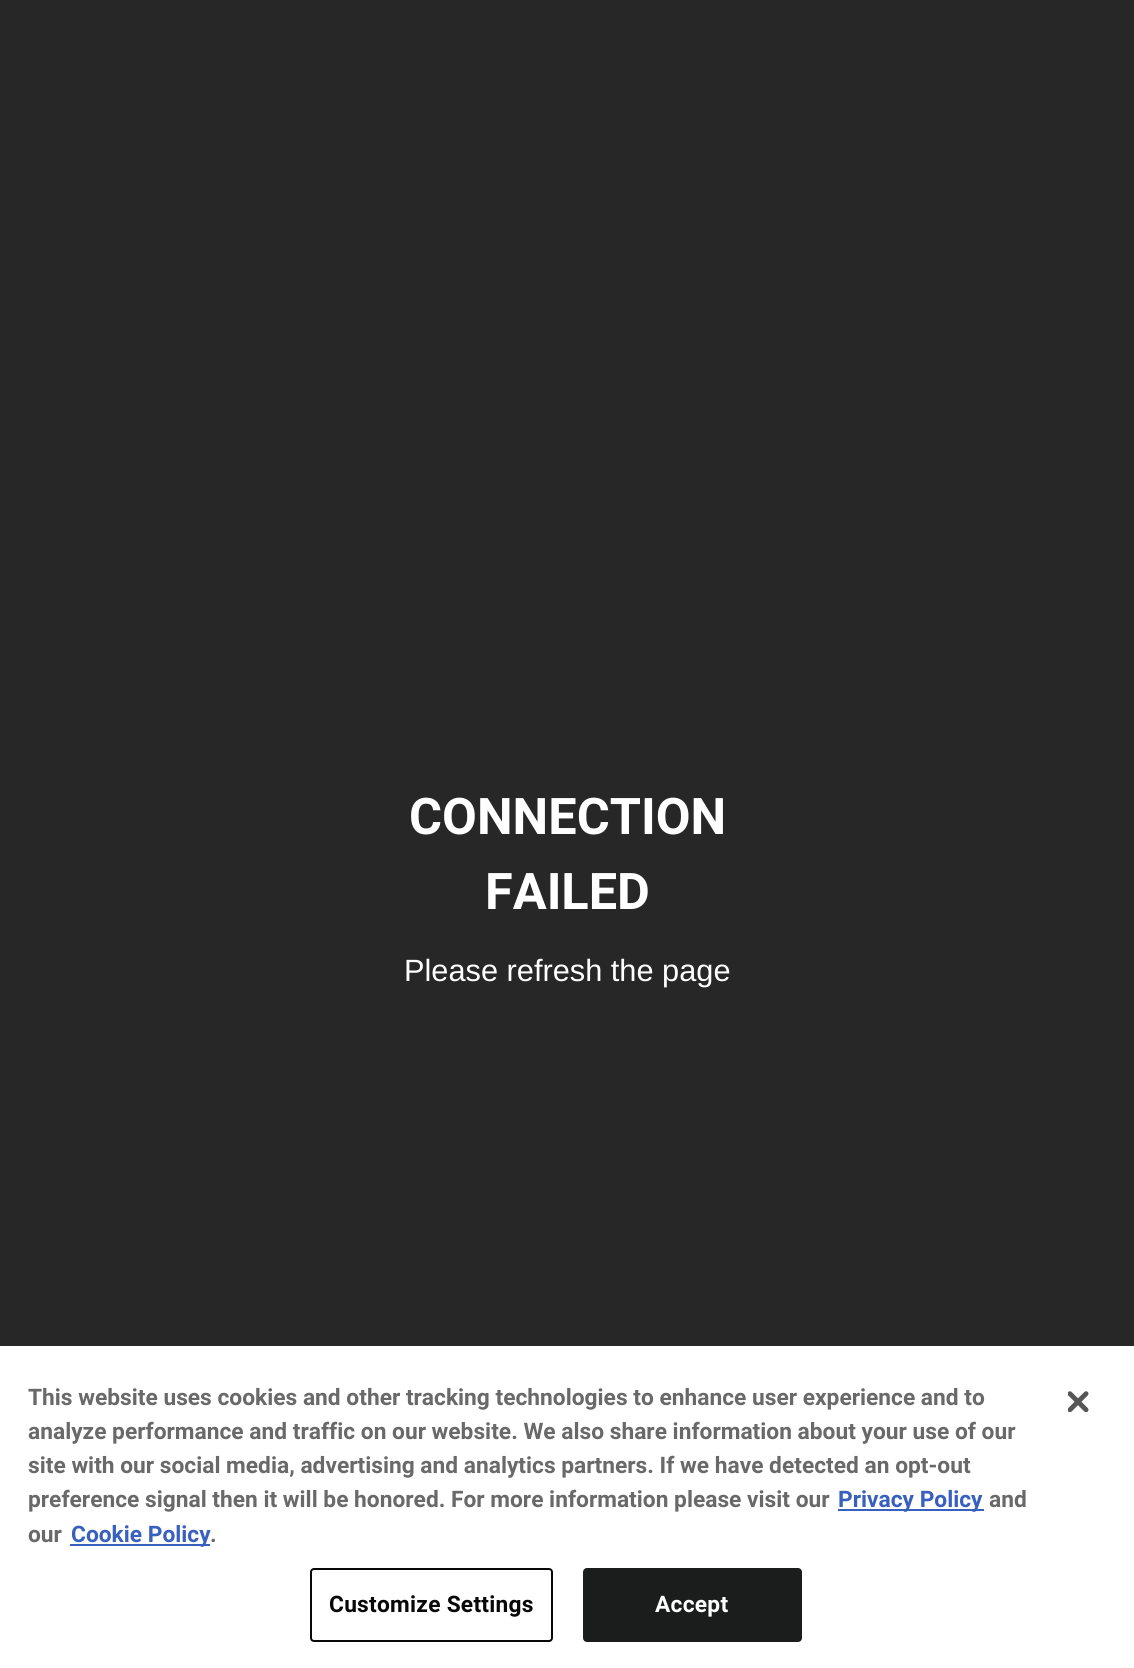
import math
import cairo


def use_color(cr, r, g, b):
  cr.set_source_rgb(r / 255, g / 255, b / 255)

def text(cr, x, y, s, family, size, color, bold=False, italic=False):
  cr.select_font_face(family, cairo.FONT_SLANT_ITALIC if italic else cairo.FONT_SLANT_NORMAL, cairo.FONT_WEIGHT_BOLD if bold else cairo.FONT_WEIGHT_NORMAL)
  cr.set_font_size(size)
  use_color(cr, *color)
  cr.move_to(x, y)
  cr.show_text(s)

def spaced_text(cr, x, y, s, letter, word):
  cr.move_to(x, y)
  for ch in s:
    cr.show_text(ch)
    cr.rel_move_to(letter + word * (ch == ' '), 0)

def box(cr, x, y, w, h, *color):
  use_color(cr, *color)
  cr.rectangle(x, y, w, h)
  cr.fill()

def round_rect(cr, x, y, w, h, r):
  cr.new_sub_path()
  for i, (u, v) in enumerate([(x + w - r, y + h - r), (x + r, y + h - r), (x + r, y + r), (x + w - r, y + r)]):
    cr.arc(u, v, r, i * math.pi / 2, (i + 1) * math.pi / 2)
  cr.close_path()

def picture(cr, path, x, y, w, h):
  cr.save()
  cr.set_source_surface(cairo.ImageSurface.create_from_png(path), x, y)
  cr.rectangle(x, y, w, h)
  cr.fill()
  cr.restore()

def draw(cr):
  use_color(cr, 39, 39, 39)
  cr.paint()
  box(cr, 0, 1346, 1134, 322, 255, 255, 255)
  box(cr, 838, 1509, 146, 2, 56, 96, 190)
  box(cr, 70, 1544, 140, 2, 56, 96, 190)
  round_rect(cr, 311, 1569, 241, 72, 3)
  use_color(cr, 8, 8, 8)
  cr.stroke()
  use_color(cr, 27, 29, 28)
  round_rect(cr, 584, 1569, 217, 72, 3)
  cr.fill_preserve()
  cr.stroke()
  picture(cr, "img_01.png", 1068, 1391, 21, 21)
  text(cr, 409, 834, "CONNECTION", "Roboto", 50.5, (255, 255, 255), bold=True)
  text(cr, 485, 909, "FAILED", "Roboto", 50.5, (255, 255, 255), bold=True)
  text(cr, 404, 981, "Please refresh the page", "Liberation Sans", 30.75, (255, 255, 255))
  text(cr, 28, 1405, "This website uses cookies and other tracking technologies to enhance user experience and to", "Roboto", 22.75, (105, 105, 105), bold=True)
  text(cr, 28, 1439, "analyze performance and traffic on our website. We also share information about your use of our", "Roboto", 22.75, (105, 105, 105), bold=True)
  text(cr, 28, 1473, "site with our social media, advertising and analytics partners. If we have detected an opt-out", "Roboto", 22.75, (105, 105, 105), bold=True)
  text(cr, 28, 1507, "preference signal then it will be honored. For more information please visit our", "Roboto", 22.75, (105, 105, 105), bold=True)
  text(cr, 838, 1507, "Privacy Policy", "Roboto", 22.75, (56, 96, 190), bold=True)
  text(cr, 989, 1507, "and", "Roboto", 22.75, (105, 105, 105), bold=True)
  text(cr, 28, 1542, "our", "Roboto", 22.75, (105, 105, 105), bold=True)
  text(cr, 71, 1542, "Cookie Policy", "Roboto", 22.75, (56, 96, 190), bold=True)
  text(cr, 210, 1542, ".", "Roboto", 22.75, (105, 105, 105), bold=True)
  use_color(cr, 8, 8, 8)
  spaced_text(cr, 329, 1612, "Customize Settings", 0.25, 0)
  use_color(cr, 255, 255, 255)
  spaced_text(cr, 655, 1612, "Accept", 0.25, 0)


surface = cairo.ImageSurface(cairo.FORMAT_RGB24, 1134, 1668)
cr = cairo.Context(surface)
options = cairo.FontOptions()
options.set_hint_metrics(cairo.HINT_METRICS_OFF)
options.set_hint_style(cairo.HINT_STYLE_NONE)
cr.set_font_options(options)
cr.set_miter_limit(4)
draw(cr)
surface.write_to_png("out.png")
